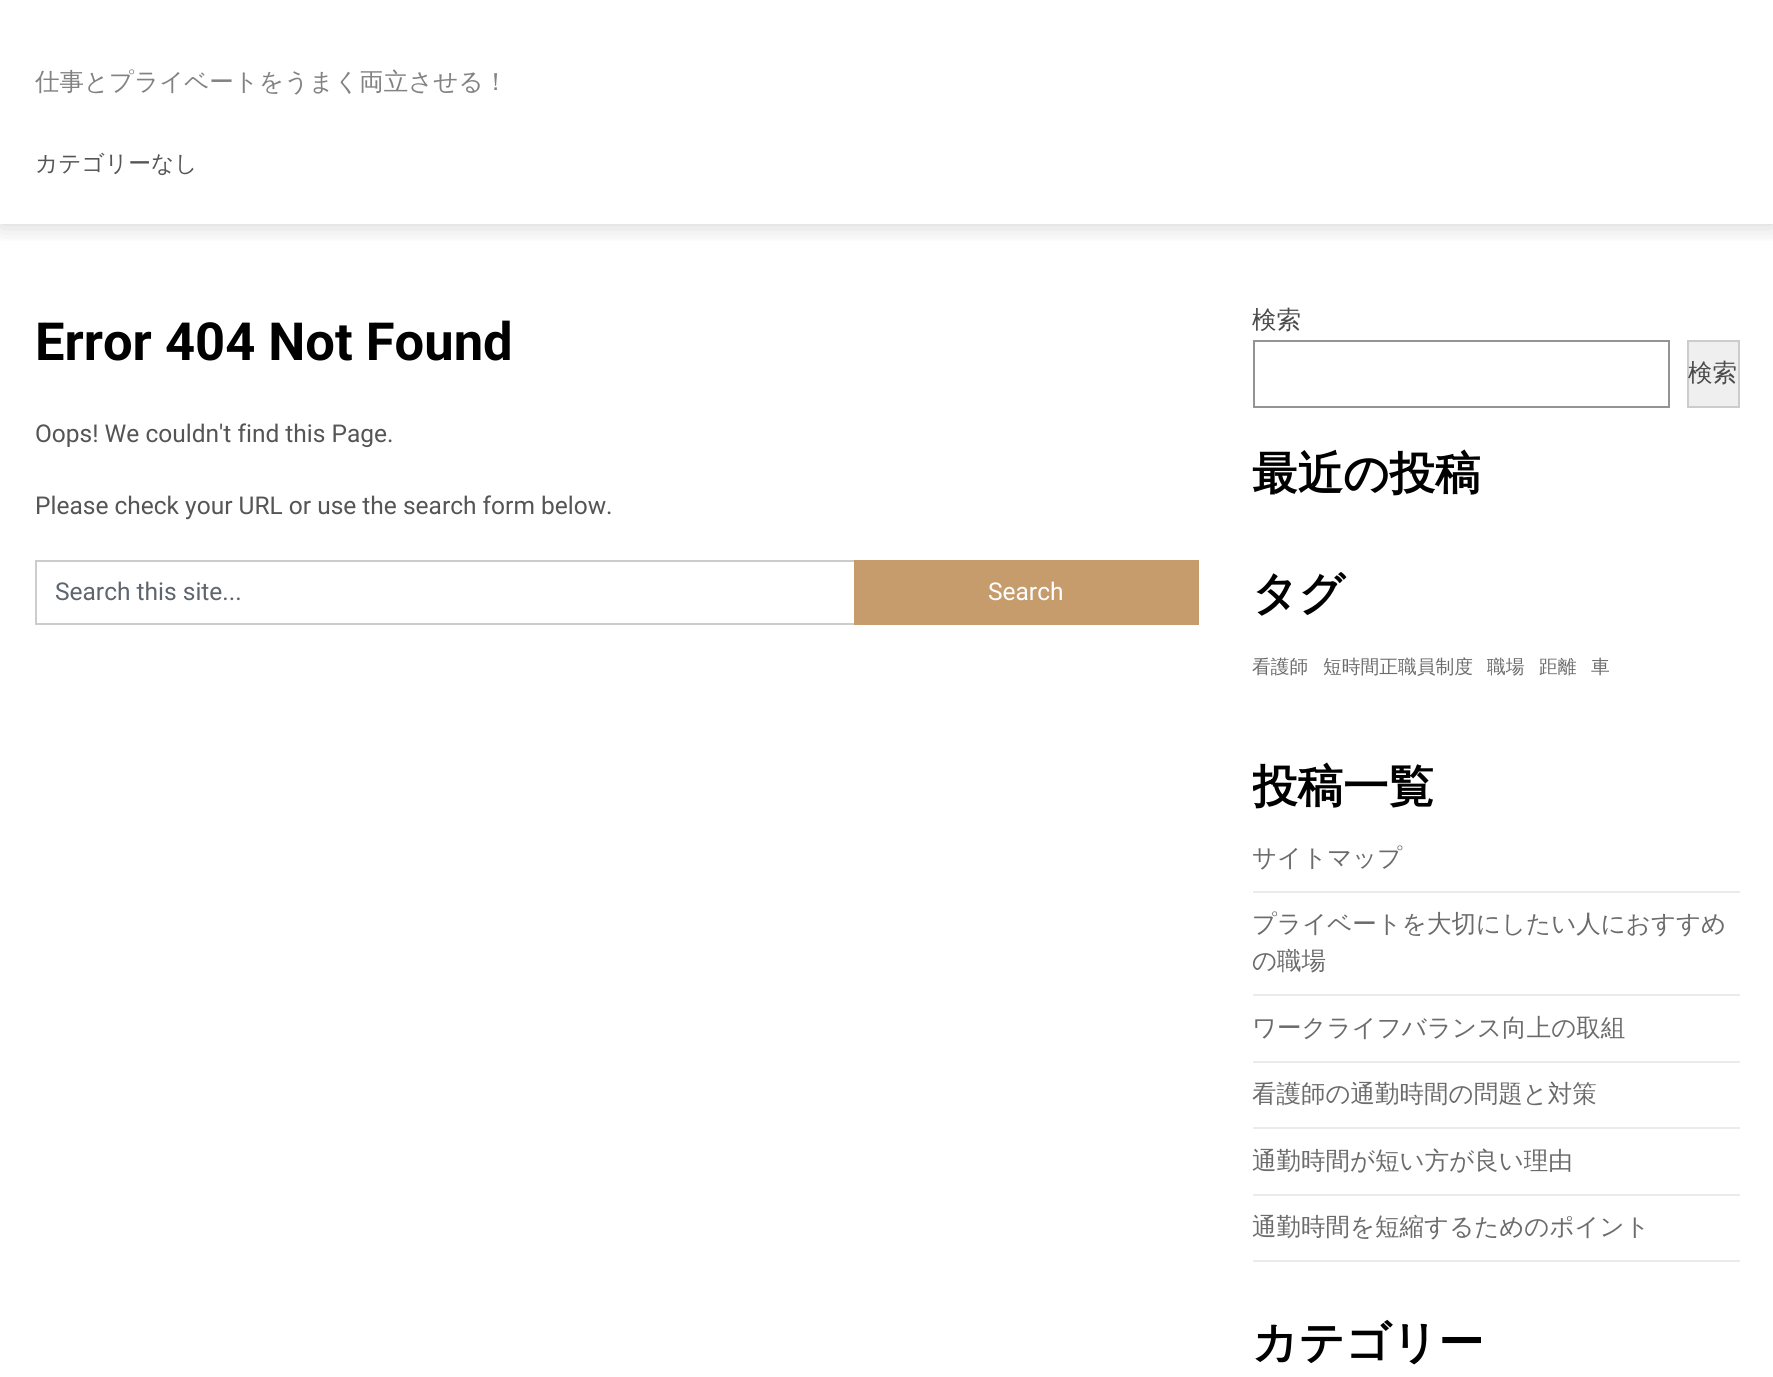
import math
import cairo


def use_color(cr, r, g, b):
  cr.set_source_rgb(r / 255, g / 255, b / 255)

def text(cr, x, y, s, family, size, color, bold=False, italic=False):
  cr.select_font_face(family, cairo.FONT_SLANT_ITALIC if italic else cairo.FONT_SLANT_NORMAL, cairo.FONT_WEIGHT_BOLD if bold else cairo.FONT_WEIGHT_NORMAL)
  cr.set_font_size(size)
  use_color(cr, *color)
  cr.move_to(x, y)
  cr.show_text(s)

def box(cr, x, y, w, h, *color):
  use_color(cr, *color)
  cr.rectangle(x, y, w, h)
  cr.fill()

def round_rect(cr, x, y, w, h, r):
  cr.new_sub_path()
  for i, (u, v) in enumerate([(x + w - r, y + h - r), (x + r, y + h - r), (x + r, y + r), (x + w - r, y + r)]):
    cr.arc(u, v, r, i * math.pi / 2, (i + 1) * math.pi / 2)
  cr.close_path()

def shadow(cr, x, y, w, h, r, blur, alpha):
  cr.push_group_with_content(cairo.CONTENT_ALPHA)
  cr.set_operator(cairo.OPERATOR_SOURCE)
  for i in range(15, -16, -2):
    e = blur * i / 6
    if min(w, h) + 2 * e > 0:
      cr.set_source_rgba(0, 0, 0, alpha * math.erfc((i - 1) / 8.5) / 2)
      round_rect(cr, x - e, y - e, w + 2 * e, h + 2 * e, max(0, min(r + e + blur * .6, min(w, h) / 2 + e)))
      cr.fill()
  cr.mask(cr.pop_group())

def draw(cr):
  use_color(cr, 255, 255, 255)
  cr.paint()
  cr.save()
  cr.rectangle(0, 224, 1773, 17)
  cr.clip()
  use_color(cr, 0, 0, 0)
  shadow(cr, 0, -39, 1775, 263, 0, 13, 0.2)
  cr.restore()
  box(cr, 35, 560, 819, 2, 204, 204, 204)
  box(cr, 35, 623, 819, 2, 204, 204, 204)
  box(cr, 35, 560, 2, 65, 204, 204, 204)
  box(cr, 854, 560, 345, 65, 198, 156, 109)
  cr.rectangle(1254, 341, 415, 66)
  use_color(cr, 148, 148, 148)
  cr.stroke()
  use_color(cr, 239, 239, 239)
  cr.rectangle(1688, 341, 51, 66)
  cr.fill_preserve()
  use_color(cr, 204, 204, 204)
  cr.stroke()
  box(cr, 1253, 891, 487, 2, 235, 235, 235)
  box(cr, 1253, 994, 487, 2, 235, 235, 235)
  box(cr, 1253, 1061, 487, 2, 235, 235, 235)
  box(cr, 1253, 1127, 487, 2, 235, 235, 235)
  box(cr, 1253, 1194, 487, 2, 235, 235, 235)
  box(cr, 1253, 1260, 487, 2, 235, 235, 235)
  text(cr, 35, 90, "仕事とプライベートをうまく両立させる！", "WenQuanYi Zen Hei Medium", 24.5, (130, 130, 130))
  text(cr, 35, 171, "カテゴリーなし", "WenQuanYi Zen Hei Medium", 22.75, (85, 85, 85))
  text(cr, 35, 360, "Error 404 Not Found", "Roboto", 52.5, (0, 0, 0), bold=True)
  text(cr, 35, 442, "Oops! We couldn't find this Page.", "Roboto", 24.5, (85, 85, 85))
  text(cr, 35, 514, "Please check your URL or use the search form below.", "Roboto", 24.5, (85, 85, 85))
  text(cr, 55, 600, "Search this site...", "Roboto", 24.5, (94, 101, 109))
  text(cr, 988, 600, "Search", "Roboto", 24.5, (255, 255, 255))
  text(cr, 1252, 328, "検索", "WenQuanYi Zen Hei Medium", 24.5, (74, 74, 74))
  text(cr, 1688, 381, "検索", "WenQuanYi Zen Hei Medium", 24.5, (74, 74, 74))
  text(cr, 1252, 489, "最近の投稿", "WenQuanYi Zen Hei", 45.5, (0, 0, 0), bold=True)
  text(cr, 1252, 609, "タグ", "WenQuanYi Zen Hei", 45.5, (0, 0, 0), bold=True)
  text(cr, 1252, 673, "看護師", "WenQuanYi Zen Hei Medium", 18.75, (107, 107, 107))
  text(cr, 1323, 673, "短時間正職員制度", "WenQuanYi Zen Hei Medium", 18.75, (107, 107, 107))
  text(cr, 1487, 673, "職場", "WenQuanYi Zen Hei Medium", 18.75, (107, 107, 107))
  text(cr, 1539, 673, "距離", "WenQuanYi Zen Hei Medium", 18.75, (107, 107, 107))
  text(cr, 1591, 673, "車", "WenQuanYi Zen Hei Medium", 18.75, (107, 107, 107))
  cr.save()
  cr.rectangle(1253, 754, 487, 522)
  cr.clip()
  text(cr, 1252, 802, "投稿一覧", "WenQuanYi Zen Hei", 45.5, (0, 0, 0), bold=True)
  cr.restore()
  text(cr, 1252, 866, "サイトマップ", "WenQuanYi Zen Hei Medium", 24.5, (107, 107, 107))
  text(cr, 1252, 932, "プライベートを大切にしたい人におすすめ", "WenQuanYi Zen Hei Medium", 24.5, (107, 107, 107))
  text(cr, 1252, 969, "の職場", "WenQuanYi Zen Hei Medium", 24.5, (107, 107, 107))
  text(cr, 1252, 1036, "ワークライフバランス向上の取組", "WenQuanYi Zen Hei Medium", 24.5, (107, 107, 107))
  text(cr, 1252, 1102, "看護師の通勤時間の問題と対策", "WenQuanYi Zen Hei Medium", 24.5, (107, 107, 107))
  text(cr, 1252, 1169, "通勤時間が短い方が良い理由", "WenQuanYi Zen Hei Medium", 24.5, (107, 107, 107))
  text(cr, 1252, 1235, "通勤時間を短縮するためのポイント", "WenQuanYi Zen Hei Medium", 24.5, (107, 107, 107))
  text(cr, 1252, 1358, "カテゴリー", "WenQuanYi Zen Hei", 45.5, (0, 0, 0), bold=True)


surface = cairo.ImageSurface(cairo.FORMAT_RGB24, 1773, 1377)
cr = cairo.Context(surface)
options = cairo.FontOptions()
options.set_hint_metrics(cairo.HINT_METRICS_OFF)
options.set_hint_style(cairo.HINT_STYLE_NONE)
cr.set_font_options(options)
cr.set_miter_limit(4)
draw(cr)
surface.write_to_png("out.png")
